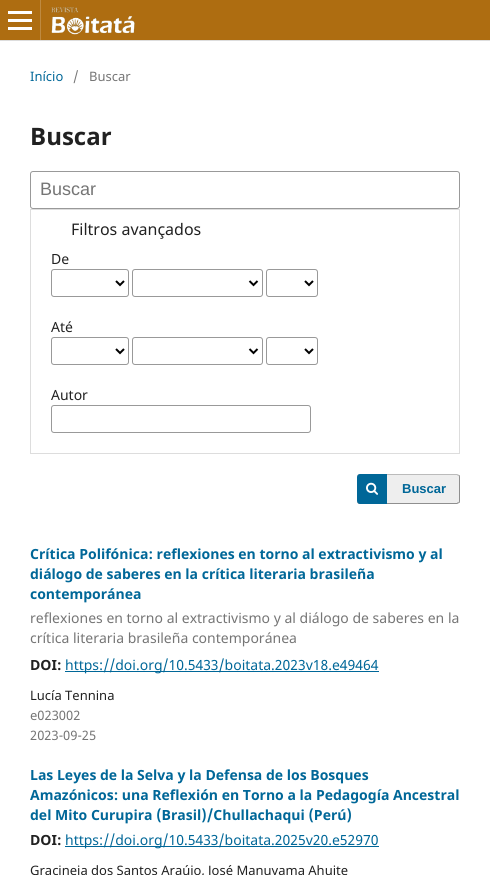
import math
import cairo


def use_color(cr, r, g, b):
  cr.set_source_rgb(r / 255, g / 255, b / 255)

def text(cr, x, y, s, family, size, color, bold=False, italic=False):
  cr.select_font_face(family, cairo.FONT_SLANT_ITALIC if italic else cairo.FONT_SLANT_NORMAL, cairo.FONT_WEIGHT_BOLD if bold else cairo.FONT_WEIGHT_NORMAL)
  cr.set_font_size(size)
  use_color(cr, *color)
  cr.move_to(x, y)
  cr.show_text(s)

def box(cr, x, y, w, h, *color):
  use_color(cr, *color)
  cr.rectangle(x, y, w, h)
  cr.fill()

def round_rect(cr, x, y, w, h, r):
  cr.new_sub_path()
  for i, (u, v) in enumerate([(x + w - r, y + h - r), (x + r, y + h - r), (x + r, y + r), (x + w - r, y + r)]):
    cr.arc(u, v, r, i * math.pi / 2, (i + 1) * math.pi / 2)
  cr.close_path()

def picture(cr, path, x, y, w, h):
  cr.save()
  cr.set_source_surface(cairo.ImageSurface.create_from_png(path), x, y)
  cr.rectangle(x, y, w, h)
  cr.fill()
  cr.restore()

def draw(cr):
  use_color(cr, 255, 255, 255)
  cr.paint()
  box(cr, 0, 0, 490, 40, 174, 109, 17)
  box(cr, 0, 40, 490, 1, 221, 221, 221)
  box(cr, 40, 0, 1, 40, 190, 138, 65)
  box(cr, 8, 27, 24, 3, 255, 255, 255)
  box(cr, 8, 11, 24, 3, 255, 255, 255)
  box(cr, 8, 19, 24, 3, 255, 255, 255)
  picture(cr, "img_01.png", 51, 7, 84, 28)
  round_rect(cr, 30.5, 171.5, 429, 37, 2.5)
  use_color(cr, 153, 153, 153)
  cr.set_line_width(1)
  cr.stroke()
  cr.rectangle(30.5, 209.5, 429, 244)
  use_color(cr, 221, 221, 221)
  cr.stroke()
  round_rect(cr, 51.5, 269.5, 77, 27, 2.5)
  use_color(cr, 153, 153, 153)
  cr.stroke()
  cr.new_path()
  cr.move_to(116, 281)
  cr.line_to(120, 285)
  cr.line_to(124, 281)
  use_color(cr, 0, 0, 0)
  cr.set_line_width(2)
  cr.stroke()
  round_rect(cr, 132.5, 269.5, 130, 27, 2.5)
  use_color(cr, 153, 153, 153)
  cr.set_line_width(1)
  cr.stroke()
  cr.new_path()
  cr.move_to(249.5, 281)
  cr.line_to(253.5, 285)
  cr.line_to(257.5, 281)
  use_color(cr, 0, 0, 0)
  cr.set_line_width(2)
  cr.stroke()
  round_rect(cr, 266.5, 269.5, 51, 27, 2.5)
  use_color(cr, 153, 153, 153)
  cr.set_line_width(1)
  cr.stroke()
  cr.new_path()
  cr.move_to(305, 281)
  cr.line_to(309, 285)
  cr.line_to(313, 281)
  use_color(cr, 0, 0, 0)
  cr.set_line_width(2)
  cr.stroke()
  round_rect(cr, 51.5, 337.5, 77, 27, 2.5)
  use_color(cr, 153, 153, 153)
  cr.set_line_width(1)
  cr.stroke()
  cr.new_path()
  cr.move_to(116, 349)
  cr.line_to(120, 353)
  cr.line_to(124, 349)
  use_color(cr, 0, 0, 0)
  cr.set_line_width(2)
  cr.stroke()
  round_rect(cr, 132.5, 337.5, 130, 27, 2.5)
  use_color(cr, 153, 153, 153)
  cr.set_line_width(1)
  cr.stroke()
  cr.new_path()
  cr.move_to(249.5, 349)
  cr.line_to(253.5, 353)
  cr.line_to(257.5, 349)
  use_color(cr, 0, 0, 0)
  cr.set_line_width(2)
  cr.stroke()
  round_rect(cr, 266.5, 337.5, 51, 27, 2.5)
  use_color(cr, 153, 153, 153)
  cr.set_line_width(1)
  cr.stroke()
  cr.new_path()
  cr.move_to(305, 349)
  cr.line_to(309, 353)
  cr.line_to(313, 349)
  use_color(cr, 0, 0, 0)
  cr.set_line_width(2)
  cr.stroke()
  round_rect(cr, 51.5, 405.5, 259, 27, 2.5)
  use_color(cr, 153, 153, 153)
  cr.set_line_width(1)
  cr.stroke()
  use_color(cr, 238, 238, 238)
  round_rect(cr, 357, 474, 103, 30, 3)
  cr.fill()
  use_color(cr, 187, 187, 187)
  cr.new_path()
  cr.move_to(360, 474)
  cr.curve_to(358, 474, 357, 475, 357, 477)
  cr.curve_to(357, 476, 358, 475, 360, 475)
  cr.line_to(457, 475)
  cr.line_to(458, 476)
  cr.line_to(459, 475)
  cr.line_to(457, 474)
  cr.close_path()
  cr.fill()
  cr.set_source_rgba(0, 0, 0, 0.4)
  cr.new_path()
  cr.move_to(458.5, 502.5)
  cr.curve_to(459, 502, 459, 501.5, 459, 501)
  cr.line_to(459, 477)
  cr.curve_to(459, 476.5, 459, 476, 458.5, 475.5)
  cr.line_to(459, 475)
  cr.curve_to(460, 475, 460, 476, 460, 477)
  cr.line_to(460, 501)
  cr.curve_to(460, 502, 460, 503, 459, 503)
  cr.close_path()
  cr.fill()
  cr.new_path()
  cr.move_to(360, 504)
  cr.line_to(457, 504)
  cr.line_to(459, 503)
  cr.line_to(458, 502)
  cr.line_to(457, 503)
  cr.line_to(360, 503)
  cr.curve_to(358, 503, 357, 502, 357, 501)
  cr.curve_to(357, 503, 358, 504, 360, 504)
  cr.close_path()
  cr.fill()
  use_color(cr, 0, 103, 152)
  cr.new_path()
  cr.move_to(360, 474)
  cr.line_to(387, 474)
  cr.line_to(387, 504)
  cr.line_to(360, 504)
  cr.curve_to(358.5, 504, 357, 502.5, 357, 501)
  cr.line_to(357, 477)
  cr.curve_to(357, 475.5, 358.5, 474, 360, 474)
  cr.close_path()
  cr.fill()
  picture(cr, "img_02.png", 366, 482, 12, 13)
  box(cr, 65, 671, 314, 1, 0, 103, 152)
  box(cr, 65, 846, 314, 1, 0, 103, 152)
  text(cr, 30, 81, "Início", "Noto Sans", 13, (0, 103, 152))
  text(cr, 73, 81, "/", "Noto Sans", 13, (117, 117, 117))
  text(cr, 89, 81, "Buscar", "Noto Sans", 13, (117, 117, 117))
  text(cr, 30, 145, "Buscar", "Noto Sans", 24, (33, 33, 33), bold=True)
  text(cr, 40, 195, "Buscar", "Liberation Sans", 18, (117, 117, 117))
  text(cr, 71, 235, "Filtros avançados", "Noto Sans", 16, (33, 33, 33))
  text(cr, 51, 264, "De", "Noto Sans", 14, (33, 33, 33))
  text(cr, 51, 332, "Até", "Noto Sans", 14, (33, 33, 33))
  text(cr, 51, 400, "Autor", "Noto Sans", 14, (33, 33, 33))
  text(cr, 402, 493, "Buscar", "Liberation Sans", 13, (0, 103, 152), bold=True)
  text(cr, 30, 559, "Crítica Polifónica: reflexiones en torno al extractivismo y al", "Noto Sans", 14, (0, 103, 152), bold=True)
  text(cr, 30, 579, "diálogo de saberes en la crítica literaria brasileña", "Noto Sans", 14, (0, 103, 152), bold=True)
  text(cr, 30, 599, "contemporánea", "Noto Sans", 14, (0, 103, 152), bold=True)
  text(cr, 30, 623, "reflexiones en torno al extractivismo y al diálogo de saberes en la", "Noto Sans", 14, (117, 117, 117))
  text(cr, 30, 643, "crítica literaria brasileña contemporánea", "Noto Sans", 14, (117, 117, 117))
  text(cr, 30, 670, "DOI:", "Noto Sans", 14, (33, 33, 33), bold=True)
  text(cr, 65, 670, "https://doi.org/10.5433/boitata.2023v18.e49464", "Noto Sans", 14, (0, 103, 152))
  text(cr, 30, 700, "Lucía Tennina", "Noto Sans", 13, (33, 33, 33))
  text(cr, 30, 720, "e023002", "Noto Sans", 13, (117, 117, 117))
  text(cr, 30, 740, "2023-09-25", "Noto Sans", 13, (117, 117, 117))
  text(cr, 30, 780, "Las Leyes de la Selva y la Defensa de los Bosques", "Noto Sans", 14, (0, 103, 152), bold=True)
  text(cr, 30, 800, "Amazónicos: una Reflexión en Torno a la Pedagogía Ancestral", "Noto Sans", 14, (0, 103, 152), bold=True)
  text(cr, 30, 820, "del Mito Curupira (Brasil)/Chullachaqui (Perú)", "Noto Sans", 14, (0, 103, 152), bold=True)
  text(cr, 30, 845, "DOI:", "Noto Sans", 14, (33, 33, 33), bold=True)
  text(cr, 65, 845, "https://doi.org/10.5433/boitata.2025v20.e52970", "Noto Sans", 14, (0, 103, 152))
  text(cr, 30, 875, "Gracineia dos Santos Araújo, José Manuyama Ahuite", "Noto Sans", 13, (33, 33, 33))


surface = cairo.ImageSurface(cairo.FORMAT_RGB24, 490, 875)
cr = cairo.Context(surface)
options = cairo.FontOptions()
options.set_hint_metrics(cairo.HINT_METRICS_OFF)
options.set_hint_style(cairo.HINT_STYLE_NONE)
cr.set_font_options(options)
cr.set_miter_limit(4)
draw(cr)
surface.write_to_png("out.png")
